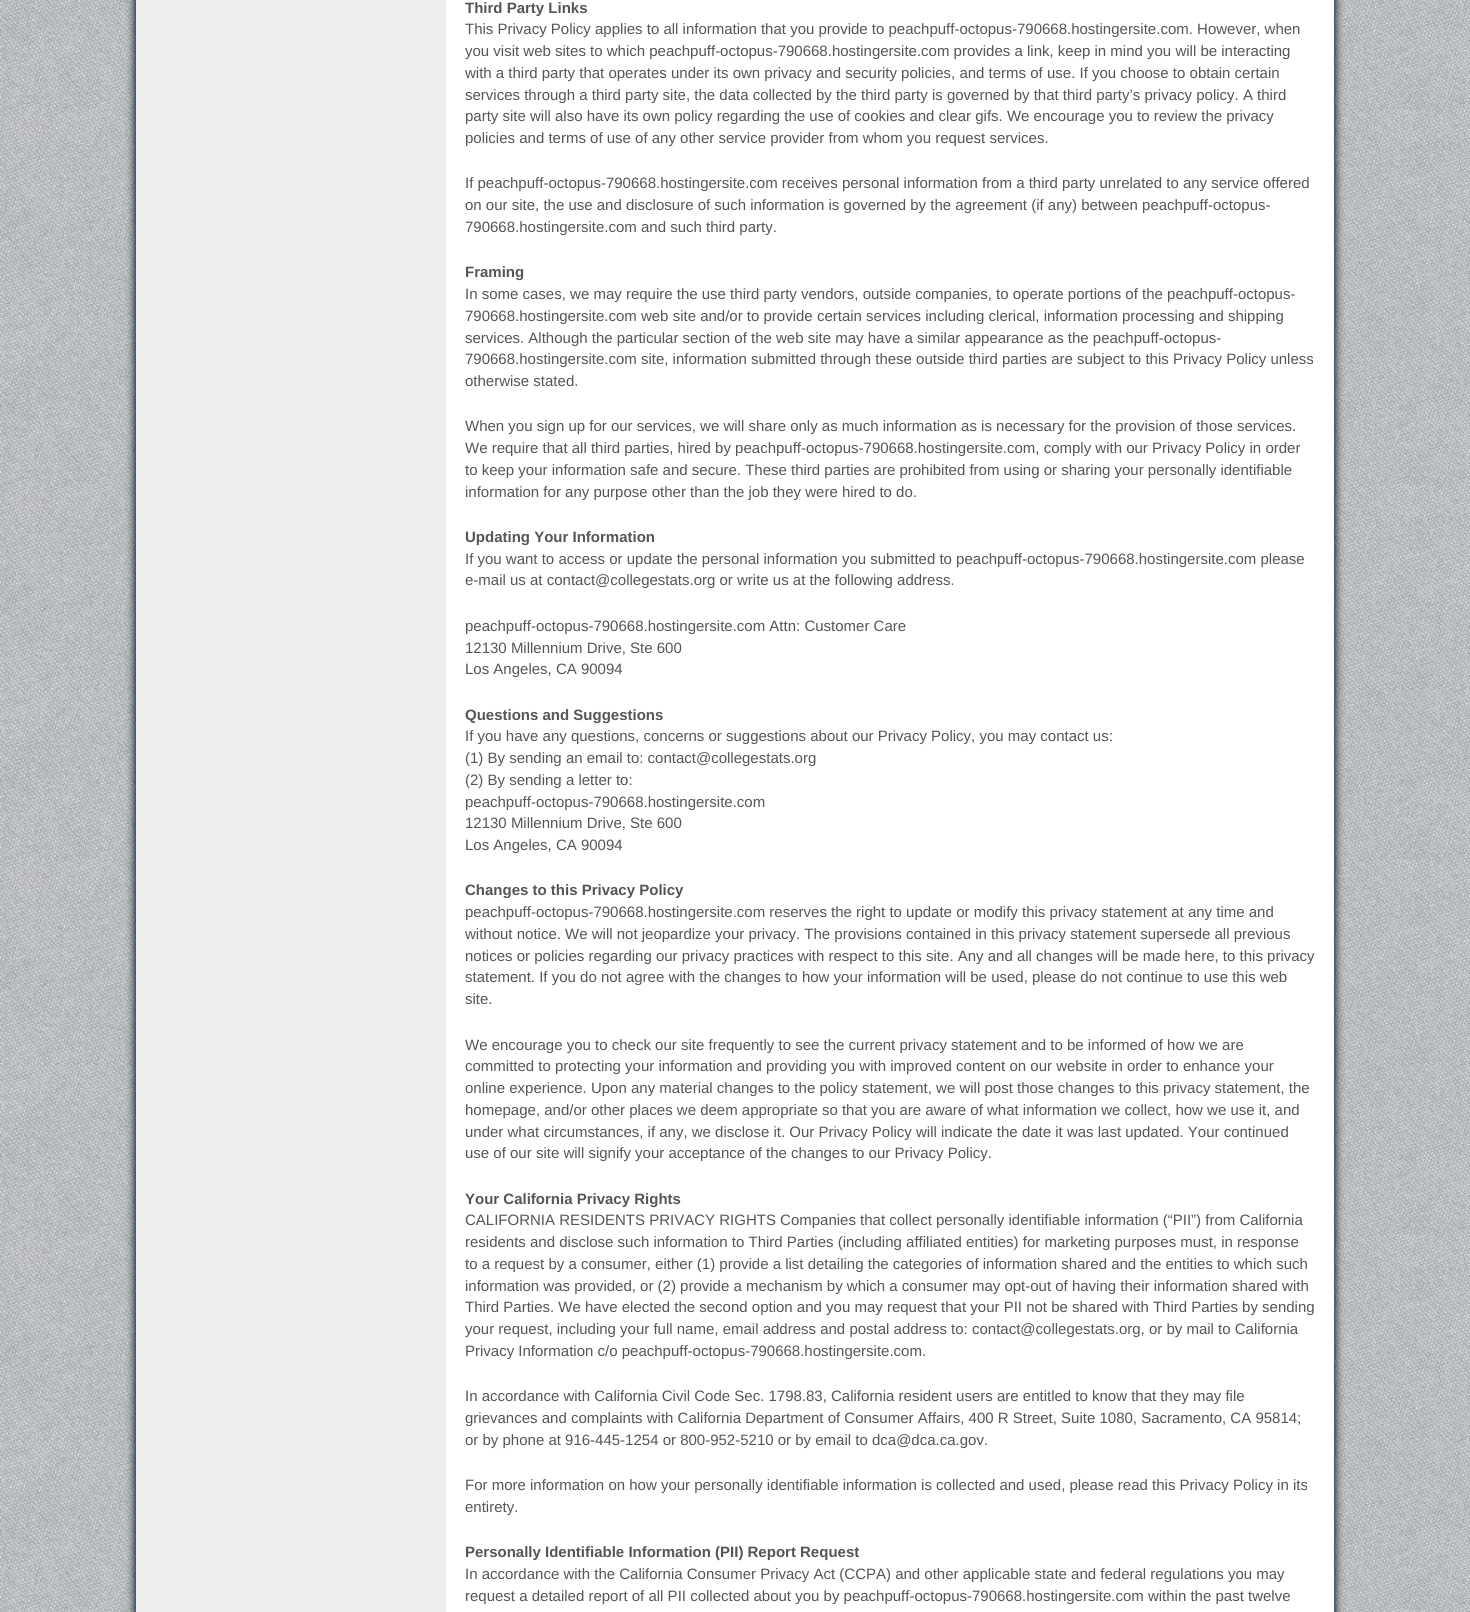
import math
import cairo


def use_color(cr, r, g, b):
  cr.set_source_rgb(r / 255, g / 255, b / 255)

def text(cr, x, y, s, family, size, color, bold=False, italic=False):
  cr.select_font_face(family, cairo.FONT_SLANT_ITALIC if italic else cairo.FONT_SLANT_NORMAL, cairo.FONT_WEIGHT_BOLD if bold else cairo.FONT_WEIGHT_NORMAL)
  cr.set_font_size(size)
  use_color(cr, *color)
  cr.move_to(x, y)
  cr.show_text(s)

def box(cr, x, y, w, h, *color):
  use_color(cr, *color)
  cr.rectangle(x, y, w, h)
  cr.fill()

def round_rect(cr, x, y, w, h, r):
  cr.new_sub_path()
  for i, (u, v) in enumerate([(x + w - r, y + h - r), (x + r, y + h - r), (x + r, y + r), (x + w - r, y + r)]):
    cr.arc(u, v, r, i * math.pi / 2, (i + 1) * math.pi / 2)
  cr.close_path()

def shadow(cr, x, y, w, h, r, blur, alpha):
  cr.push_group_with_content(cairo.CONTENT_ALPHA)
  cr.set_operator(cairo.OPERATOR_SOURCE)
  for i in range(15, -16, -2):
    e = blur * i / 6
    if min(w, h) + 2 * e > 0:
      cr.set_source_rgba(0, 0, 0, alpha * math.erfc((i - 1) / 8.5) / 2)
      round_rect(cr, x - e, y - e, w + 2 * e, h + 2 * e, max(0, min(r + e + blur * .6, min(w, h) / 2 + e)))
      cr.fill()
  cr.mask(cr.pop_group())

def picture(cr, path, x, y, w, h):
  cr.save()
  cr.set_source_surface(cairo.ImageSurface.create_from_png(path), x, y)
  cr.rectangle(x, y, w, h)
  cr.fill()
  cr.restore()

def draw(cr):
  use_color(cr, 255, 255, 255)
  cr.paint()
  picture(cr, "img_01.png", 0, 0, 1470, 1612)
  use_color(cr, 0, 0, 0)
  shadow(cr, 135, -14, 1200, 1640, 0, 4.5, 1)
  box(cr, 136, 0, 310, 1612, 238, 238, 238)
  cr.rectangle(135.5, -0.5, 1199, 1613)
  use_color(cr, 53, 95, 133)
  cr.set_line_width(1)
  cr.stroke()
  box(cr, 446, 0, 888, 1612, 255, 255, 255)
  text(cr, 465, 13, "Third Party Links", "Liberation Sans", 15, (85, 85, 85), bold=True)
  text(cr, 465, 34, "This Privacy Policy applies to all information that you provide to peachpuff-octopus-790668.hostingersite.com. However, when", "Liberation Sans", 15, (85, 85, 85))
  text(cr, 465, 56, "you visit web sites to which peachpuff-octopus-790668.hostingersite.com provides a link, keep in mind you will be interacting", "Liberation Sans", 15, (85, 85, 85))
  text(cr, 465, 78, "with a third party that operates under its own privacy and security policies, and terms of use. If you choose to obtain certain", "Liberation Sans", 15, (85, 85, 85))
  text(cr, 465, 100, "services through a third party site, the data collected by the third party is governed by that third party’s privacy policy. A third", "Liberation Sans", 15, (85, 85, 85))
  text(cr, 465, 121, "party site will also have its own policy regarding the use of cookies and clear gifs. We encourage you to review the privacy", "Liberation Sans", 15, (85, 85, 85))
  text(cr, 465, 143, "policies and terms of use of any other service provider from whom you request services.", "Liberation Sans", 15, (85, 85, 85))
  text(cr, 465, 188, "If peachpuff-octopus-790668.hostingersite.com receives personal information from a third party unrelated to any service offered", "Liberation Sans", 15, (85, 85, 85))
  text(cr, 465, 210, "on our site, the use and disclosure of such information is governed by the agreement (if any) between peachpuff-octopus-", "Liberation Sans", 15, (85, 85, 85))
  text(cr, 465, 232, "790668.hostingersite.com and such third party.", "Liberation Sans", 15, (85, 85, 85))
  text(cr, 465, 277, "Framing", "Liberation Sans", 15, (85, 85, 85), bold=True)
  text(cr, 465, 299, "In some cases, we may require the use third party vendors, outside companies, to operate portions of the peachpuff-octopus-", "Liberation Sans", 15, (85, 85, 85))
  text(cr, 465, 321, "790668.hostingersite.com web site and/or to provide certain services including clerical, information processing and shipping", "Liberation Sans", 15, (85, 85, 85))
  text(cr, 465, 343, "services. Although the particular section of the web site may have a similar appearance as the peachpuff-octopus-", "Liberation Sans", 15, (85, 85, 85))
  text(cr, 465, 364, "790668.hostingersite.com site, information submitted through these outside third parties are subject to this Privacy Policy unless", "Liberation Sans", 15, (85, 85, 85))
  text(cr, 465, 386, "otherwise stated.", "Liberation Sans", 15, (85, 85, 85))
  text(cr, 465, 431, "When you sign up for our services, we will share only as much information as is necessary for the provision of those services.", "Liberation Sans", 15, (85, 85, 85))
  text(cr, 465, 453, "We require that all third parties, hired by peachpuff-octopus-790668.hostingersite.com, comply with our Privacy Policy in order", "Liberation Sans", 15, (85, 85, 85))
  text(cr, 465, 475, "to keep your information safe and secure. These third parties are prohibited from using or sharing your personally identifiable", "Liberation Sans", 15, (85, 85, 85))
  text(cr, 465, 497, "information for any purpose other than the job they were hired to do.", "Liberation Sans", 15, (85, 85, 85))
  text(cr, 465, 542, "Updating Your Information", "Liberation Sans", 15, (85, 85, 85), bold=True)
  text(cr, 465, 564, "If you want to access or update the personal information you submitted to peachpuff-octopus-790668.hostingersite.com please", "Liberation Sans", 15, (85, 85, 85))
  text(cr, 465, 585, "e-mail us at contact@collegestats.org or write us at the following address.", "Liberation Sans", 15, (85, 85, 85))
  text(cr, 465, 631, "peachpuff-octopus-790668.hostingersite.com Attn: Customer Care", "Liberation Sans", 15, (85, 85, 85))
  text(cr, 465, 653, "12130 Millennium Drive, Ste 600", "Liberation Sans", 15, (85, 85, 85))
  text(cr, 465, 674, "Los Angeles, CA 90094", "Liberation Sans", 15, (85, 85, 85))
  text(cr, 465, 720, "Questions and Suggestions", "Liberation Sans", 15, (85, 85, 85), bold=True)
  text(cr, 465, 741, "If you have any questions, concerns or suggestions about our Privacy Policy, you may contact us:", "Liberation Sans", 15, (85, 85, 85))
  text(cr, 465, 763, "(1) By sending an email to: contact@collegestats.org", "Liberation Sans", 15, (85, 85, 85))
  text(cr, 465, 785, "(2) By sending a letter to:", "Liberation Sans", 15, (85, 85, 85))
  text(cr, 465, 807, "peachpuff-octopus-790668.hostingersite.com", "Liberation Sans", 15, (85, 85, 85))
  text(cr, 465, 828, "12130 Millennium Drive, Ste 600", "Liberation Sans", 15, (85, 85, 85))
  text(cr, 465, 850, "Los Angeles, CA 90094", "Liberation Sans", 15, (85, 85, 85))
  text(cr, 465, 895, "Changes to this Privacy Policy", "Liberation Sans", 15, (85, 85, 85), bold=True)
  text(cr, 465, 917, "peachpuff-octopus-790668.hostingersite.com reserves the right to update or modify this privacy statement at any time and", "Liberation Sans", 15, (85, 85, 85))
  text(cr, 465, 939, "without notice. We will not jeopardize your privacy. The provisions contained in this privacy statement supersede all previous", "Liberation Sans", 15, (85, 85, 85))
  text(cr, 465, 961, "notices or policies regarding our privacy practices with respect to this site. Any and all changes will be made here, to this privacy", "Liberation Sans", 15, (85, 85, 85))
  text(cr, 465, 982, "statement. If you do not agree with the changes to how your information will be used, please do not continue to use this web", "Liberation Sans", 15, (85, 85, 85))
  text(cr, 465, 1004, "site.", "Liberation Sans", 15, (85, 85, 85))
  text(cr, 465, 1050, "We encourage you to check our site frequently to see the current privacy statement and to be informed of how we are", "Liberation Sans", 15, (85, 85, 85))
  text(cr, 465, 1071, "committed to protecting your information and providing you with improved content on our website in order to enhance your", "Liberation Sans", 15, (85, 85, 85))
  text(cr, 465, 1093, "online experience. Upon any material changes to the policy statement, we will post those changes to this privacy statement, the", "Liberation Sans", 15, (85, 85, 85))
  text(cr, 465, 1115, "homepage, and/or other places we deem appropriate so that you are aware of what information we collect, how we use it, and", "Liberation Sans", 15, (85, 85, 85))
  text(cr, 465, 1137, "under what circumstances, if any, we disclose it. Our Privacy Policy will indicate the date it was last updated. Your continued", "Liberation Sans", 15, (85, 85, 85))
  text(cr, 465, 1158, "use of our site will signify your acceptance of the changes to our Privacy Policy.", "Liberation Sans", 15, (85, 85, 85))
  text(cr, 465, 1204, "Your California Privacy Rights", "Liberation Sans", 15, (85, 85, 85), bold=True)
  text(cr, 465, 1225, "CALIFORNIA RESIDENTS PRIVACY RIGHTS Companies that collect personally identifiable information (“PII”) from California", "Liberation Sans", 15, (85, 85, 85))
  text(cr, 465, 1247, "residents and disclose such information to Third Parties (including affiliated entities) for marketing purposes must, in response", "Liberation Sans", 15, (85, 85, 85))
  text(cr, 465, 1269, "to a request by a consumer, either (1) provide a list detailing the categories of information shared and the entities to which such", "Liberation Sans", 15, (85, 85, 85))
  text(cr, 465, 1291, "information was provided, or (2) provide a mechanism by which a consumer may opt-out of having their information shared with", "Liberation Sans", 15, (85, 85, 85))
  text(cr, 465, 1312, "Third Parties. We have elected the second option and you may request that your PII not be shared with Third Parties by sending", "Liberation Sans", 15, (85, 85, 85))
  text(cr, 465, 1334, "your request, including your full name, email address and postal address to: contact@collegestats.org, or by mail to California", "Liberation Sans", 15, (85, 85, 85))
  text(cr, 465, 1356, "Privacy Information c/o peachpuff-octopus-790668.hostingersite.com.", "Liberation Sans", 15, (85, 85, 85))
  text(cr, 465, 1401, "In accordance with California Civil Code Sec. 1798.83, California resident users are entitled to know that they may file", "Liberation Sans", 15, (85, 85, 85))
  text(cr, 465, 1423, "grievances and complaints with California Department of Consumer Affairs, 400 R Street, Suite 1080, Sacramento, CA 95814;", "Liberation Sans", 15, (85, 85, 85))
  text(cr, 465, 1445, "or by phone at 916-445-1254 or 800-952-5210 or by email to dca@dca.ca.gov.", "Liberation Sans", 15, (85, 85, 85))
  text(cr, 465, 1490, "For more information on how your personally identifiable information is collected and used, please read this Privacy Policy in its", "Liberation Sans", 15, (85, 85, 85))
  text(cr, 465, 1512, "entirety.", "Liberation Sans", 15, (85, 85, 85))
  text(cr, 465, 1557, "Personally Identifiable Information (PII) Report Request", "Liberation Sans", 15, (85, 85, 85), bold=True)
  text(cr, 465, 1579, "In accordance with the California Consumer Privacy Act (CCPA) and other applicable state and federal regulations you may", "Liberation Sans", 15, (85, 85, 85))
  text(cr, 465, 1601, "request a detailed report of all PII collected about you by peachpuff-octopus-790668.hostingersite.com within the past twelve", "Liberation Sans", 15, (85, 85, 85))


surface = cairo.ImageSurface(cairo.FORMAT_RGB24, 1470, 1612)
cr = cairo.Context(surface)
options = cairo.FontOptions()
options.set_hint_metrics(cairo.HINT_METRICS_OFF)
options.set_hint_style(cairo.HINT_STYLE_NONE)
cr.set_font_options(options)
cr.set_miter_limit(4)
draw(cr)
surface.write_to_png("out.png")
